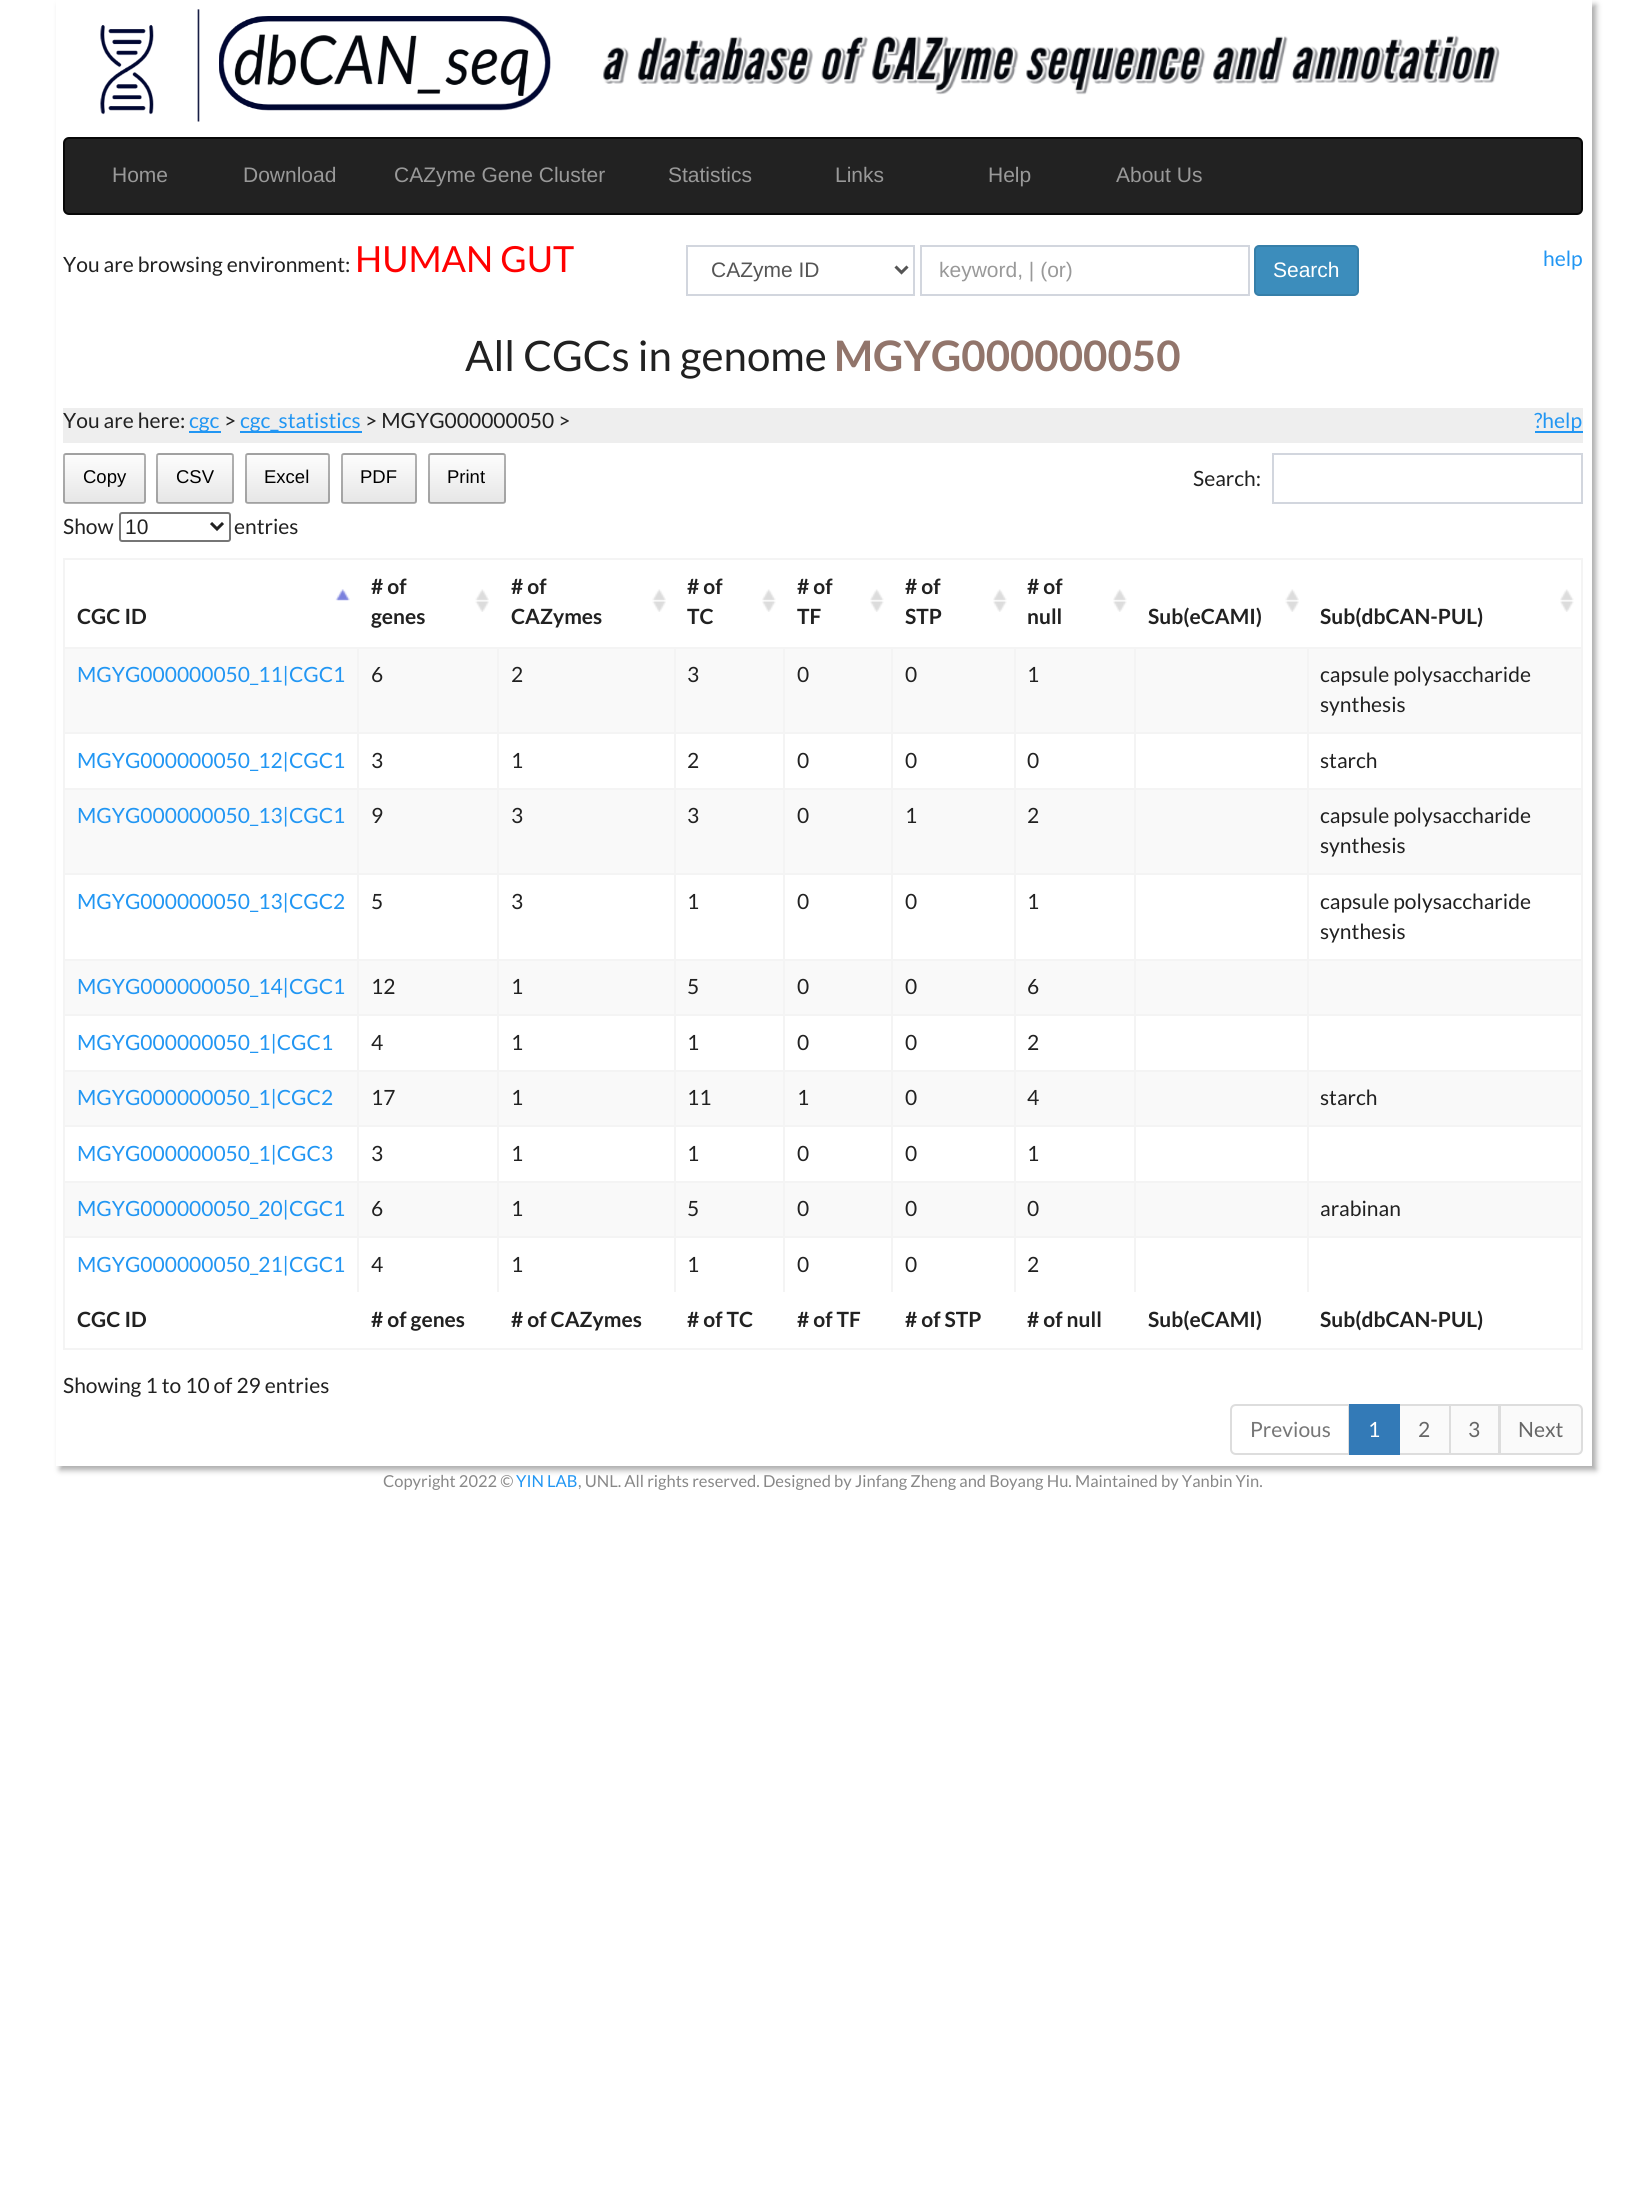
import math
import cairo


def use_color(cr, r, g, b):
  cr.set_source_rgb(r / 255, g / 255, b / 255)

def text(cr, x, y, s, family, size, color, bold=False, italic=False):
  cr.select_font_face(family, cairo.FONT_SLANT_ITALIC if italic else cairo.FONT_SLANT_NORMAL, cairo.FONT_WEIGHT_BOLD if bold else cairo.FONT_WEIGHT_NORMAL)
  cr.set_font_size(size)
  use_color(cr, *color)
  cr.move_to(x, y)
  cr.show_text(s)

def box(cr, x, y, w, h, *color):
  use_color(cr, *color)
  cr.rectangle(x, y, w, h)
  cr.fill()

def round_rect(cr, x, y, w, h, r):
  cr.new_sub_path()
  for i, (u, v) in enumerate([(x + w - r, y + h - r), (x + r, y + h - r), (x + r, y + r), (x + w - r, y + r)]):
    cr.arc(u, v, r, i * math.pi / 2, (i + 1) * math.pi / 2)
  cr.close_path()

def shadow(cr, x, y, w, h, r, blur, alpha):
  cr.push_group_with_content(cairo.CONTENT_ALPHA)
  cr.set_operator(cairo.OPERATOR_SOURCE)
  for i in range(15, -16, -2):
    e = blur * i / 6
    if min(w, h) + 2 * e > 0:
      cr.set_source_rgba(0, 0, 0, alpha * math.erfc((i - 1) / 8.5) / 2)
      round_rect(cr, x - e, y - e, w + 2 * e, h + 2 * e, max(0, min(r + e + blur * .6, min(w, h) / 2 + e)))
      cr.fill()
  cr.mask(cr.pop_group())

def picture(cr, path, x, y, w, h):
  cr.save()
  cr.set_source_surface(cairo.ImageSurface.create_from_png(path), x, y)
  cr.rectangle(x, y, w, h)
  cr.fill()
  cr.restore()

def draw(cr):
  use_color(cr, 255, 255, 255)
  cr.paint()
  use_color(cr, 170, 170, 170)
  shadow(cr, 60, 5, 1536, 1465, 0, 3, 1)
  box(cr, 56, 0, 1536, 1466, 255, 255, 255)
  picture(cr, "img_01.png", 100, 9, 451, 113)
  picture(cr, "img_02.png", 603, 35, 897, 60)
  use_color(cr, 34, 34, 34)
  round_rect(cr, 64, 138, 1518, 76, 5)
  cr.fill_preserve()
  use_color(cr, 8, 8, 8)
  cr.stroke()
  cr.rectangle(687, 246, 227, 49)
  use_color(cr, 210, 214, 222)
  cr.stroke()
  cr.new_path()
  cr.move_to(895.5, 266.5)
  cr.line_to(901.5, 272.5)
  cr.line_to(907.5, 266.5)
  use_color(cr, 85, 85, 85)
  cr.set_line_width(3)
  cr.stroke()
  cr.rectangle(921, 246, 328, 49)
  use_color(cr, 210, 214, 222)
  cr.set_line_width(2)
  cr.stroke()
  use_color(cr, 60, 141, 188)
  round_rect(cr, 1255, 246, 103, 49, 4)
  cr.fill_preserve()
  use_color(cr, 54, 127, 169)
  cr.stroke()
  box(cr, 63, 408, 1520, 35, 238, 238, 238)
  box(cr, 189, 431, 32, 2, 33, 150, 243)
  box(cr, 240, 431, 122, 2, 33, 150, 243)
  box(cr, 1535, 431, 48, 2, 33, 150, 243)
  cr.save()
  round_rect(cr, 63, 453, 83, 51, 3)
  cr.clip()
  gradient = cairo.LinearGradient(104, 407, 104, 455)
  gradient.add_color_stop_rgba(0, 0.992, 0.992, 0.992, 1)
  gradient.add_color_stop_rgba(1, 0.902, 0.902, 0.902, 1)
  cr.set_source(gradient)
  cr.rectangle(63, 453, 83, 2)
  cr.fill()
  gradient = cairo.LinearGradient(104, 455, 104, 503)
  gradient.add_color_stop_rgba(0, 0.992, 0.992, 0.992, 1)
  gradient.add_color_stop_rgba(1, 0.902, 0.902, 0.902, 1)
  cr.set_source(gradient)
  cr.rectangle(63, 455, 83, 48)
  cr.fill()
  cr.restore()
  round_rect(cr, 64, 454, 81, 49, 2)
  cr.set_source_rgba(0, 0, 0, 0.3)
  cr.stroke()
  cr.save()
  round_rect(cr, 156, 453, 78, 51, 3)
  cr.clip()
  gradient = cairo.LinearGradient(195, 407, 195, 455)
  gradient.add_color_stop_rgba(0, 0.992, 0.992, 0.992, 1)
  gradient.add_color_stop_rgba(1, 0.902, 0.902, 0.902, 1)
  cr.set_source(gradient)
  cr.rectangle(156, 453, 78, 2)
  cr.fill()
  gradient = cairo.LinearGradient(195, 455, 195, 503)
  gradient.add_color_stop_rgba(0, 0.992, 0.992, 0.992, 1)
  gradient.add_color_stop_rgba(1, 0.902, 0.902, 0.902, 1)
  cr.set_source(gradient)
  cr.rectangle(156, 455, 78, 48)
  cr.fill()
  cr.restore()
  round_rect(cr, 157, 454, 76, 49, 2)
  cr.stroke()
  cr.save()
  round_rect(cr, 245, 453, 85, 51, 3)
  cr.clip()
  gradient = cairo.LinearGradient(287, 407, 287, 455)
  gradient.add_color_stop_rgba(0, 0.992, 0.992, 0.992, 1)
  gradient.add_color_stop_rgba(1, 0.902, 0.902, 0.902, 1)
  cr.set_source(gradient)
  cr.rectangle(245, 453, 85, 2)
  cr.fill()
  gradient = cairo.LinearGradient(287, 455, 287, 503)
  gradient.add_color_stop_rgba(0, 0.992, 0.992, 0.992, 1)
  gradient.add_color_stop_rgba(1, 0.902, 0.902, 0.902, 1)
  cr.set_source(gradient)
  cr.rectangle(245, 455, 85, 48)
  cr.fill()
  cr.restore()
  round_rect(cr, 246, 454, 83, 49, 2)
  cr.stroke()
  cr.save()
  round_rect(cr, 341, 453, 76, 51, 3)
  cr.clip()
  gradient = cairo.LinearGradient(379, 407, 379, 455)
  gradient.add_color_stop_rgba(0, 0.992, 0.992, 0.992, 1)
  gradient.add_color_stop_rgba(1, 0.902, 0.902, 0.902, 1)
  cr.set_source(gradient)
  cr.rectangle(341, 453, 76, 2)
  cr.fill()
  gradient = cairo.LinearGradient(379, 455, 379, 503)
  gradient.add_color_stop_rgba(0, 0.992, 0.992, 0.992, 1)
  gradient.add_color_stop_rgba(1, 0.902, 0.902, 0.902, 1)
  cr.set_source(gradient)
  cr.rectangle(341, 455, 76, 48)
  cr.fill()
  cr.restore()
  round_rect(cr, 342, 454, 74, 49, 2)
  cr.stroke()
  cr.save()
  round_rect(cr, 428, 453, 78, 51, 3)
  cr.clip()
  gradient = cairo.LinearGradient(467, 407, 467, 455)
  gradient.add_color_stop_rgba(0, 0.992, 0.992, 0.992, 1)
  gradient.add_color_stop_rgba(1, 0.902, 0.902, 0.902, 1)
  cr.set_source(gradient)
  cr.rectangle(428, 453, 78, 2)
  cr.fill()
  gradient = cairo.LinearGradient(467, 455, 467, 503)
  gradient.add_color_stop_rgba(0, 0.992, 0.992, 0.992, 1)
  gradient.add_color_stop_rgba(1, 0.902, 0.902, 0.902, 1)
  cr.set_source(gradient)
  cr.rectangle(428, 455, 78, 48)
  cr.fill()
  cr.restore()
  round_rect(cr, 429, 454, 76, 49, 2)
  cr.stroke()
  cr.rectangle(1273, 454, 309, 49)
  use_color(cr, 210, 214, 222)
  cr.stroke()
  round_rect(cr, 120, 513, 110, 28, 2)
  use_color(cr, 118, 118, 118)
  cr.stroke()
  cr.new_path()
  cr.move_to(211, 523)
  cr.line_to(217, 529)
  cr.line_to(223, 523)
  use_color(cr, 33, 33, 33)
  cr.set_line_width(3)
  cr.stroke()
  cr.rectangle(64, 559, 1518, 790)
  use_color(cr, 244, 244, 244)
  cr.set_line_width(2)
  cr.stroke()
  picture(cr, "img_03.png", 335, 589, 15, 12)
  picture(cr, "img_04.png", 475, 589, 14, 23)
  picture(cr, "img_05.png", 652, 589, 14, 23)
  picture(cr, "img_06.png", 762, 589, 14, 23)
  picture(cr, "img_06.png", 870, 589, 14, 23)
  picture(cr, "img_06.png", 993, 589, 14, 23)
  picture(cr, "img_06.png", 1113, 589, 14, 23)
  picture(cr, "img_05.png", 1285, 589, 14, 23)
  picture(cr, "img_06.png", 1560, 589, 14, 23)
  box(cr, 65, 649, 1516, 83, 249, 249, 249)
  box(cr, 65, 647, 433, 2, 244, 244, 244)
  box(cr, 357, 647, 2, 85, 244, 244, 244)
  box(cr, 497, 647, 2, 85, 244, 244, 244)
  box(cr, 498, 647, 177, 2, 244, 244, 244)
  box(cr, 674, 647, 2, 85, 244, 244, 244)
  box(cr, 675, 647, 633, 2, 244, 244, 244)
  box(cr, 783, 647, 2, 85, 244, 244, 244)
  box(cr, 891, 647, 2, 85, 244, 244, 244)
  box(cr, 1014, 647, 2, 85, 244, 244, 244)
  box(cr, 1134, 647, 2, 85, 244, 244, 244)
  box(cr, 1307, 647, 2, 85, 244, 244, 244)
  box(cr, 1308, 647, 273, 2, 244, 244, 244)
  box(cr, 65, 732, 433, 2, 244, 244, 244)
  box(cr, 357, 732, 2, 56, 244, 244, 244)
  box(cr, 497, 732, 2, 56, 244, 244, 244)
  box(cr, 498, 732, 177, 2, 244, 244, 244)
  box(cr, 674, 732, 2, 56, 244, 244, 244)
  box(cr, 675, 732, 633, 2, 244, 244, 244)
  box(cr, 783, 732, 2, 56, 244, 244, 244)
  box(cr, 891, 732, 2, 56, 244, 244, 244)
  box(cr, 1014, 732, 2, 56, 244, 244, 244)
  box(cr, 1134, 732, 2, 56, 244, 244, 244)
  box(cr, 1307, 732, 2, 56, 244, 244, 244)
  box(cr, 1308, 732, 273, 2, 244, 244, 244)
  box(cr, 65, 790, 1516, 83, 249, 249, 249)
  box(cr, 65, 788, 433, 2, 244, 244, 244)
  box(cr, 357, 788, 2, 85, 244, 244, 244)
  box(cr, 497, 788, 2, 85, 244, 244, 244)
  box(cr, 498, 788, 177, 2, 244, 244, 244)
  box(cr, 674, 788, 2, 85, 244, 244, 244)
  box(cr, 675, 788, 633, 2, 244, 244, 244)
  box(cr, 783, 788, 2, 85, 244, 244, 244)
  box(cr, 891, 788, 2, 85, 244, 244, 244)
  box(cr, 1014, 788, 2, 85, 244, 244, 244)
  box(cr, 1134, 788, 2, 85, 244, 244, 244)
  box(cr, 1307, 788, 2, 85, 244, 244, 244)
  box(cr, 1308, 788, 273, 2, 244, 244, 244)
  box(cr, 65, 873, 433, 2, 244, 244, 244)
  box(cr, 357, 873, 2, 86, 244, 244, 244)
  box(cr, 497, 873, 2, 86, 244, 244, 244)
  box(cr, 498, 873, 177, 2, 244, 244, 244)
  box(cr, 674, 873, 2, 86, 244, 244, 244)
  box(cr, 675, 873, 633, 2, 244, 244, 244)
  box(cr, 783, 873, 2, 86, 244, 244, 244)
  box(cr, 891, 873, 2, 86, 244, 244, 244)
  box(cr, 1014, 873, 2, 86, 244, 244, 244)
  box(cr, 1134, 873, 2, 86, 244, 244, 244)
  box(cr, 1307, 873, 2, 86, 244, 244, 244)
  box(cr, 1308, 873, 273, 2, 244, 244, 244)
  box(cr, 65, 961, 1516, 53, 249, 249, 249)
  box(cr, 65, 959, 433, 2, 244, 244, 244)
  box(cr, 497, 959, 2, 55, 244, 244, 244)
  box(cr, 498, 959, 177, 2, 244, 244, 244)
  box(cr, 674, 959, 2, 55, 244, 244, 244)
  box(cr, 675, 959, 633, 2, 244, 244, 244)
  box(cr, 1307, 959, 2, 55, 244, 244, 244)
  box(cr, 1308, 959, 273, 2, 244, 244, 244)
  box(cr, 357, 959, 2, 55, 244, 244, 244)
  box(cr, 783, 959, 2, 55, 244, 244, 244)
  box(cr, 891, 959, 2, 55, 244, 244, 244)
  box(cr, 1014, 959, 2, 55, 244, 244, 244)
  box(cr, 1134, 959, 2, 55, 244, 244, 244)
  box(cr, 65, 1014, 433, 2, 244, 244, 244)
  box(cr, 497, 1014, 2, 56, 244, 244, 244)
  box(cr, 498, 1014, 177, 2, 244, 244, 244)
  box(cr, 674, 1014, 2, 56, 244, 244, 244)
  box(cr, 675, 1014, 633, 2, 244, 244, 244)
  box(cr, 1307, 1014, 2, 56, 244, 244, 244)
  box(cr, 1308, 1014, 273, 2, 244, 244, 244)
  box(cr, 357, 1014, 2, 56, 244, 244, 244)
  box(cr, 783, 1014, 2, 56, 244, 244, 244)
  box(cr, 891, 1014, 2, 56, 244, 244, 244)
  box(cr, 1014, 1014, 2, 56, 244, 244, 244)
  box(cr, 1134, 1014, 2, 56, 244, 244, 244)
  box(cr, 65, 1072, 1516, 53, 249, 249, 249)
  box(cr, 65, 1070, 433, 2, 244, 244, 244)
  box(cr, 357, 1070, 2, 55, 244, 244, 244)
  box(cr, 497, 1070, 2, 55, 244, 244, 244)
  box(cr, 498, 1070, 177, 2, 244, 244, 244)
  box(cr, 674, 1070, 2, 55, 244, 244, 244)
  box(cr, 675, 1070, 633, 2, 244, 244, 244)
  box(cr, 783, 1070, 2, 55, 244, 244, 244)
  box(cr, 891, 1070, 2, 55, 244, 244, 244)
  box(cr, 1014, 1070, 2, 55, 244, 244, 244)
  box(cr, 1134, 1070, 2, 55, 244, 244, 244)
  box(cr, 1307, 1070, 2, 55, 244, 244, 244)
  box(cr, 1308, 1070, 273, 2, 244, 244, 244)
  box(cr, 65, 1125, 433, 2, 244, 244, 244)
  box(cr, 497, 1125, 2, 56, 244, 244, 244)
  box(cr, 498, 1125, 177, 2, 244, 244, 244)
  box(cr, 674, 1125, 2, 56, 244, 244, 244)
  box(cr, 675, 1125, 633, 2, 244, 244, 244)
  box(cr, 1307, 1125, 2, 56, 244, 244, 244)
  box(cr, 1308, 1125, 273, 2, 244, 244, 244)
  box(cr, 357, 1125, 2, 56, 244, 244, 244)
  box(cr, 783, 1125, 2, 56, 244, 244, 244)
  box(cr, 891, 1125, 2, 56, 244, 244, 244)
  box(cr, 1014, 1125, 2, 56, 244, 244, 244)
  box(cr, 1134, 1125, 2, 56, 244, 244, 244)
  box(cr, 65, 1183, 1516, 53, 249, 249, 249)
  box(cr, 65, 1181, 433, 2, 244, 244, 244)
  box(cr, 357, 1181, 2, 55, 244, 244, 244)
  box(cr, 497, 1181, 2, 55, 244, 244, 244)
  box(cr, 498, 1181, 177, 2, 244, 244, 244)
  box(cr, 674, 1181, 2, 55, 244, 244, 244)
  box(cr, 675, 1181, 633, 2, 244, 244, 244)
  box(cr, 783, 1181, 2, 55, 244, 244, 244)
  box(cr, 891, 1181, 2, 55, 244, 244, 244)
  box(cr, 1014, 1181, 2, 55, 244, 244, 244)
  box(cr, 1134, 1181, 2, 55, 244, 244, 244)
  box(cr, 1307, 1181, 2, 55, 244, 244, 244)
  box(cr, 1308, 1181, 273, 2, 244, 244, 244)
  box(cr, 65, 1236, 433, 2, 244, 244, 244)
  box(cr, 497, 1236, 2, 56, 244, 244, 244)
  box(cr, 498, 1236, 177, 2, 244, 244, 244)
  box(cr, 674, 1236, 2, 56, 244, 244, 244)
  box(cr, 675, 1236, 633, 2, 244, 244, 244)
  box(cr, 1307, 1236, 2, 56, 244, 244, 244)
  box(cr, 1308, 1236, 273, 2, 244, 244, 244)
  box(cr, 357, 1236, 2, 56, 244, 244, 244)
  box(cr, 783, 1236, 2, 56, 244, 244, 244)
  box(cr, 891, 1236, 2, 56, 244, 244, 244)
  box(cr, 1014, 1236, 2, 56, 244, 244, 244)
  box(cr, 1134, 1236, 2, 56, 244, 244, 244)
  cr.new_path()
  cr.move_to(1236, 1405)
  cr.line_to(1349, 1405)
  cr.line_to(1349, 1454)
  cr.line_to(1236, 1454)
  cr.curve_to(1233, 1454, 1231, 1452, 1231, 1449)
  cr.line_to(1231, 1410)
  cr.curve_to(1231, 1407, 1233, 1405, 1236, 1405)
  cr.close_path()
  use_color(cr, 221, 221, 221)
  cr.stroke()
  use_color(cr, 250, 250, 250)
  cr.rectangle(1399, 1405, 51, 49)
  cr.fill_preserve()
  use_color(cr, 221, 221, 221)
  cr.stroke()
  box(cr, 1349, 1404, 51, 51, 51, 122, 183)
  use_color(cr, 250, 250, 250)
  cr.rectangle(1450, 1405, 49, 49)
  cr.fill_preserve()
  use_color(cr, 221, 221, 221)
  cr.stroke()
  use_color(cr, 250, 250, 250)
  cr.new_path()
  cr.move_to(1500, 1405)
  cr.line_to(1577, 1405)
  cr.curve_to(1580, 1405, 1582, 1407, 1582, 1410)
  cr.line_to(1582, 1449)
  cr.curve_to(1582, 1452, 1580, 1454, 1577, 1454)
  cr.line_to(1500, 1454)
  cr.close_path()
  cr.fill_preserve()
  use_color(cr, 221, 221, 221)
  cr.stroke()
  text(cr, 112, 182, "Home", "Liberation Sans", 21, (153, 153, 153))
  text(cr, 243, 182, "Download", "Liberation Sans", 21, (153, 153, 153))
  text(cr, 394, 182, "CAZyme Gene Cluster", "Liberation Sans", 21, (153, 153, 153))
  text(cr, 668, 182, "Statistics", "Liberation Sans", 21, (153, 153, 153))
  text(cr, 835, 182, "Links", "Liberation Sans", 21, (153, 153, 153))
  text(cr, 988, 182, "Help", "Liberation Sans", 21, (153, 153, 153))
  text(cr, 1116, 182, "About Us", "Liberation Sans", 21, (153, 153, 153))
  text(cr, 63, 272, "You are browsing environment:", "Lato", 21, (33, 33, 33))
  text(cr, 355, 272, "HUMAN GUT", "Lato", 36, (255, 0, 0))
  text(cr, 711, 277, "CAZyme ID", "Liberation Sans", 21, (85, 85, 85))
  text(cr, 939, 277, "keyword, | (or)", "Liberation Sans", 21, (153, 153, 153))
  text(cr, 1273, 277, "Search", "Liberation Sans", 21, (255, 255, 255))
  text(cr, 1543, 266, "help", "Lato", 21, (33, 150, 243))
  text(cr, 465, 371, "All CGCs in genome", "Lato", 42, (33, 33, 33))
  text(cr, 834, 371, "MGYG000000050", "Lato", 42, (146, 117, 107), bold=True)
  text(cr, 63, 428, "You are here:", "Lato", 21, (33, 33, 33))
  text(cr, 189, 428, "cgc", "Lato", 21, (33, 150, 243))
  text(cr, 224, 428, ">", "Lato", 21, (33, 33, 33))
  text(cr, 240, 428, "cgc_statistics", "Lato", 21, (33, 150, 243))
  text(cr, 365, 428, "> MGYG000000050 >", "Lato", 21, (33, 33, 33))
  text(cr, 1534, 428, "?help", "Lato", 21, (33, 150, 243))
  text(cr, 83, 483, "Copy", "Liberation Sans", 18.5, (0, 0, 0))
  text(cr, 176, 483, "CSV", "Liberation Sans", 18.5, (0, 0, 0))
  text(cr, 264, 483, "Excel", "Liberation Sans", 18.5, (0, 0, 0))
  text(cr, 360, 483, "PDF", "Liberation Sans", 18.5, (0, 0, 0))
  text(cr, 447, 483, "Print", "Liberation Sans", 18.5, (0, 0, 0))
  text(cr, 1193, 486, "Search:", "Lato", 21, (33, 33, 33))
  text(cr, 63, 534, "Show", "Lato", 21, (33, 33, 33))
  text(cr, 125, 534, "10", "Liberation Sans", 21, (33, 33, 33))
  text(cr, 234, 534, "entries", "Lato", 21, (33, 33, 33))
  text(cr, 77, 624, "CGC ID", "Lato", 21, (33, 33, 33), bold=True)
  text(cr, 371, 594, "# of", "Lato", 21, (33, 33, 33), bold=True)
  text(cr, 371, 624, "genes", "Lato", 21, (33, 33, 33), bold=True)
  text(cr, 511, 594, "# of", "Lato", 21, (33, 33, 33), bold=True)
  text(cr, 511, 624, "CAZymes", "Lato", 21, (33, 33, 33), bold=True)
  text(cr, 687, 594, "# of", "Lato", 21, (33, 33, 33), bold=True)
  text(cr, 687, 624, "TC", "Lato", 21, (33, 33, 33), bold=True)
  text(cr, 797, 594, "# of", "Lato", 21, (33, 33, 33), bold=True)
  text(cr, 797, 624, "TF", "Lato", 21, (33, 33, 33), bold=True)
  text(cr, 905, 594, "# of", "Lato", 21, (33, 33, 33), bold=True)
  text(cr, 905, 624, "STP", "Lato", 21, (33, 33, 33), bold=True)
  text(cr, 1027, 594, "# of", "Lato", 21, (33, 33, 33), bold=True)
  text(cr, 1027, 624, "null", "Lato", 21, (33, 33, 33), bold=True)
  text(cr, 1148, 624, "Sub(eCAMI)", "Lato", 21, (33, 33, 33), bold=True)
  text(cr, 1320, 624, "Sub(dbCAN-PUL)", "Lato", 21, (33, 33, 33), bold=True)
  text(cr, 77, 682, "MGYG000000050_11|CGC1", "Lato", 21, (33, 150, 243))
  text(cr, 371, 682, "6", "Lato", 21, (33, 33, 33))
  text(cr, 511, 682, "2", "Lato", 21, (33, 33, 33))
  text(cr, 687, 682, "3", "Lato", 21, (33, 33, 33))
  text(cr, 797, 682, "0", "Lato", 21, (33, 33, 33))
  text(cr, 905, 682, "0", "Lato", 21, (33, 33, 33))
  text(cr, 1027, 682, "1", "Lato", 21, (33, 33, 33))
  text(cr, 1320, 682, "capsule polysaccharide", "Lato", 21, (33, 33, 33))
  text(cr, 1320, 712, "synthesis", "Lato", 21, (33, 33, 33))
  text(cr, 77, 768, "MGYG000000050_12|CGC1", "Lato", 21, (33, 150, 243))
  text(cr, 371, 768, "3", "Lato", 21, (33, 33, 33))
  text(cr, 511, 768, "1", "Lato", 21, (33, 33, 33))
  text(cr, 687, 768, "2", "Lato", 21, (33, 33, 33))
  text(cr, 797, 768, "0", "Lato", 21, (33, 33, 33))
  text(cr, 905, 768, "0", "Lato", 21, (33, 33, 33))
  text(cr, 1027, 768, "0", "Lato", 21, (33, 33, 33))
  text(cr, 1320, 768, "starch", "Lato", 21, (33, 33, 33))
  text(cr, 77, 823, "MGYG000000050_13|CGC1", "Lato", 21, (33, 150, 243))
  text(cr, 371, 823, "9", "Lato", 21, (33, 33, 33))
  text(cr, 511, 823, "3", "Lato", 21, (33, 33, 33))
  text(cr, 687, 823, "3", "Lato", 21, (33, 33, 33))
  text(cr, 797, 823, "0", "Lato", 21, (33, 33, 33))
  text(cr, 905, 823, "1", "Lato", 21, (33, 33, 33))
  text(cr, 1027, 823, "2", "Lato", 21, (33, 33, 33))
  text(cr, 1320, 823, "capsule polysaccharide", "Lato", 21, (33, 33, 33))
  text(cr, 1320, 853, "synthesis", "Lato", 21, (33, 33, 33))
  text(cr, 77, 909, "MGYG000000050_13|CGC2", "Lato", 21, (33, 150, 243))
  text(cr, 371, 909, "5", "Lato", 21, (33, 33, 33))
  text(cr, 511, 909, "3", "Lato", 21, (33, 33, 33))
  text(cr, 687, 909, "1", "Lato", 21, (33, 33, 33))
  text(cr, 797, 909, "0", "Lato", 21, (33, 33, 33))
  text(cr, 905, 909, "0", "Lato", 21, (33, 33, 33))
  text(cr, 1027, 909, "1", "Lato", 21, (33, 33, 33))
  text(cr, 1320, 909, "capsule polysaccharide", "Lato", 21, (33, 33, 33))
  text(cr, 1320, 939, "synthesis", "Lato", 21, (33, 33, 33))
  text(cr, 77, 994, "MGYG000000050_14|CGC1", "Lato", 21, (33, 150, 243))
  text(cr, 371, 994, "12", "Lato", 21, (33, 33, 33))
  text(cr, 511, 994, "1", "Lato", 21, (33, 33, 33))
  text(cr, 687, 994, "5", "Lato", 21, (33, 33, 33))
  text(cr, 797, 994, "0", "Lato", 21, (33, 33, 33))
  text(cr, 905, 994, "0", "Lato", 21, (33, 33, 33))
  text(cr, 1027, 994, "6", "Lato", 21, (33, 33, 33))
  text(cr, 77, 1050, "MGYG000000050_1|CGC1", "Lato", 21, (33, 150, 243))
  text(cr, 371, 1050, "4", "Lato", 21, (33, 33, 33))
  text(cr, 511, 1050, "1", "Lato", 21, (33, 33, 33))
  text(cr, 687, 1050, "1", "Lato", 21, (33, 33, 33))
  text(cr, 797, 1050, "0", "Lato", 21, (33, 33, 33))
  text(cr, 905, 1050, "0", "Lato", 21, (33, 33, 33))
  text(cr, 1027, 1050, "2", "Lato", 21, (33, 33, 33))
  text(cr, 77, 1105, "MGYG000000050_1|CGC2", "Lato", 21, (33, 150, 243))
  text(cr, 371, 1105, "17", "Lato", 21, (33, 33, 33))
  text(cr, 511, 1105, "1", "Lato", 21, (33, 33, 33))
  text(cr, 687, 1105, "11", "Lato", 21, (33, 33, 33))
  text(cr, 797, 1105, "1", "Lato", 21, (33, 33, 33))
  text(cr, 905, 1105, "0", "Lato", 21, (33, 33, 33))
  text(cr, 1027, 1105, "4", "Lato", 21, (33, 33, 33))
  text(cr, 1320, 1105, "starch", "Lato", 21, (33, 33, 33))
  text(cr, 77, 1161, "MGYG000000050_1|CGC3", "Lato", 21, (33, 150, 243))
  text(cr, 371, 1161, "3", "Lato", 21, (33, 33, 33))
  text(cr, 511, 1161, "1", "Lato", 21, (33, 33, 33))
  text(cr, 687, 1161, "1", "Lato", 21, (33, 33, 33))
  text(cr, 797, 1161, "0", "Lato", 21, (33, 33, 33))
  text(cr, 905, 1161, "0", "Lato", 21, (33, 33, 33))
  text(cr, 1027, 1161, "1", "Lato", 21, (33, 33, 33))
  text(cr, 77, 1216, "MGYG000000050_20|CGC1", "Lato", 21, (33, 150, 243))
  text(cr, 371, 1216, "6", "Lato", 21, (33, 33, 33))
  text(cr, 511, 1216, "1", "Lato", 21, (33, 33, 33))
  text(cr, 687, 1216, "5", "Lato", 21, (33, 33, 33))
  text(cr, 797, 1216, "0", "Lato", 21, (33, 33, 33))
  text(cr, 905, 1216, "0", "Lato", 21, (33, 33, 33))
  text(cr, 1027, 1216, "0", "Lato", 21, (33, 33, 33))
  text(cr, 1320, 1216, "arabinan", "Lato", 21, (33, 33, 33))
  text(cr, 77, 1272, "MGYG000000050_21|CGC1", "Lato", 21, (33, 150, 243))
  text(cr, 371, 1272, "4", "Lato", 21, (33, 33, 33))
  text(cr, 511, 1272, "1", "Lato", 21, (33, 33, 33))
  text(cr, 687, 1272, "1", "Lato", 21, (33, 33, 33))
  text(cr, 797, 1272, "0", "Lato", 21, (33, 33, 33))
  text(cr, 905, 1272, "0", "Lato", 21, (33, 33, 33))
  text(cr, 1027, 1272, "2", "Lato", 21, (33, 33, 33))
  text(cr, 77, 1327, "CGC ID", "Lato", 21, (33, 33, 33), bold=True)
  text(cr, 371, 1327, "# of genes", "Lato", 21, (33, 33, 33), bold=True)
  text(cr, 511, 1327, "# of CAZymes", "Lato", 21, (33, 33, 33), bold=True)
  text(cr, 687, 1327, "# of TC", "Lato", 21, (33, 33, 33), bold=True)
  text(cr, 797, 1327, "# of TF", "Lato", 21, (33, 33, 33), bold=True)
  text(cr, 905, 1327, "# of STP", "Lato", 21, (33, 33, 33), bold=True)
  text(cr, 1027, 1327, "# of null", "Lato", 21, (33, 33, 33), bold=True)
  text(cr, 1148, 1327, "Sub(eCAMI)", "Lato", 21, (33, 33, 33), bold=True)
  text(cr, 1320, 1327, "Sub(dbCAN-PUL)", "Lato", 21, (33, 33, 33), bold=True)
  text(cr, 63, 1393, "Showing 1 to 10 of 29 entries", "Lato", 21, (33, 33, 33))
  text(cr, 1250, 1437, "Previous", "Lato", 21, (119, 119, 119))
  text(cr, 1368, 1437, "1", "Lato", 21, (255, 255, 255))
  text(cr, 1418, 1437, "2", "Lato", 21, (102, 102, 102))
  text(cr, 1468, 1437, "3", "Lato", 21, (102, 102, 102))
  text(cr, 1518, 1437, "Next", "Lato", 21, (102, 102, 102))
  text(cr, 383, 1487, "Copyright 2022 ©", "Lato", 16.5, (136, 136, 136))
  text(cr, 516, 1487, "YIN LAB", "Lato", 16.5, (33, 150, 243))
  text(cr, 578, 1487, ", UNL. All rights reserved. Designed by Jinfang Zheng and Boyang Hu. Maintained by Yanbin Yin.", "Lato", 16.5, (136, 136, 136))


surface = cairo.ImageSurface(cairo.FORMAT_RGB24, 1645, 2185)
cr = cairo.Context(surface)
options = cairo.FontOptions()
options.set_hint_metrics(cairo.HINT_METRICS_OFF)
options.set_hint_style(cairo.HINT_STYLE_NONE)
cr.set_font_options(options)
cr.set_miter_limit(4)
draw(cr)
surface.write_to_png("out.png")
